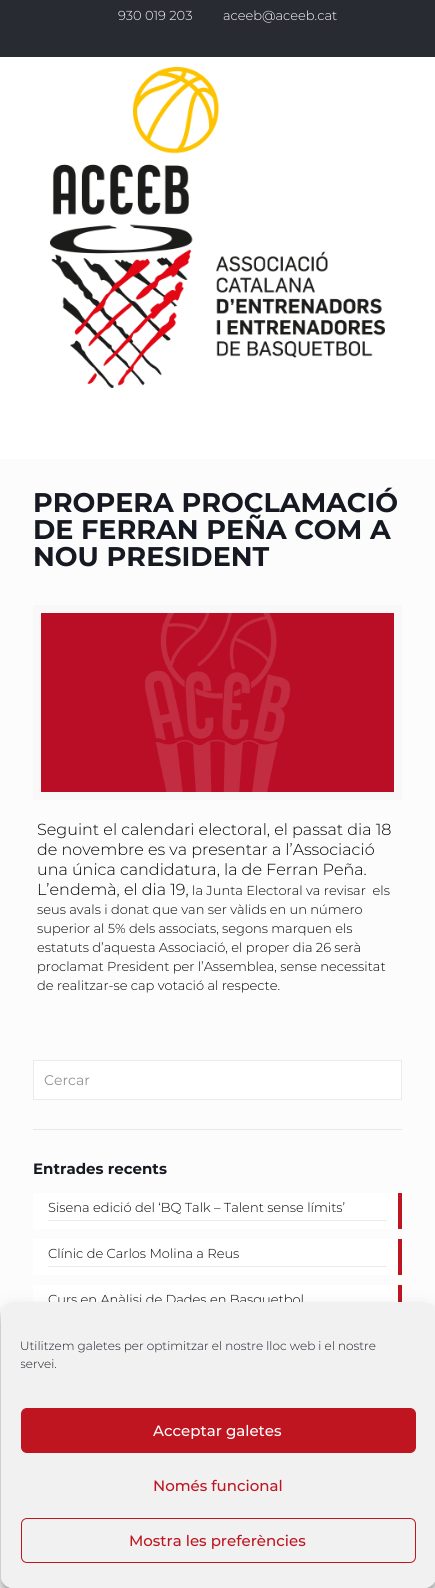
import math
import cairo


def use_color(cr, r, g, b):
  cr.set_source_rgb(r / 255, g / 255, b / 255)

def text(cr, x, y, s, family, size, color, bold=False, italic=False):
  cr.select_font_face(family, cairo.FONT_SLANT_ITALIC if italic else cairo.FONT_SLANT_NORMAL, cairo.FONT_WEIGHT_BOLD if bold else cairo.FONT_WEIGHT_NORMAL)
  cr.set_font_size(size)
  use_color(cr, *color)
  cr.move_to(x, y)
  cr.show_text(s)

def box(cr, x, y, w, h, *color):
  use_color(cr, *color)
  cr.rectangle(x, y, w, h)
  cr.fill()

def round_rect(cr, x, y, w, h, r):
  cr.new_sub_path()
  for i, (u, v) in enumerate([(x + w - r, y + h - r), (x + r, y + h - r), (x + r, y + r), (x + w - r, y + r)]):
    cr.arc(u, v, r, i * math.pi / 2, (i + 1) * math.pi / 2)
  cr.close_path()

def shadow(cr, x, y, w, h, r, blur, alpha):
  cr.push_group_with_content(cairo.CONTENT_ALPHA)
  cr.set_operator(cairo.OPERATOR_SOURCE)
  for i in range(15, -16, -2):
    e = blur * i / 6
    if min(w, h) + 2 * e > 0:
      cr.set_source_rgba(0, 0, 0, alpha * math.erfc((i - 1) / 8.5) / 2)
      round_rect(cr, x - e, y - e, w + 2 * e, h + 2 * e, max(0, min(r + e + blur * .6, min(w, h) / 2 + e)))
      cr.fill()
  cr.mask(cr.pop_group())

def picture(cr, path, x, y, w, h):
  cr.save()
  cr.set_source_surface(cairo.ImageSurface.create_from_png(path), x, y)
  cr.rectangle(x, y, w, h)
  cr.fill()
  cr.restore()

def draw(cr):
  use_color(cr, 252, 252, 252)
  cr.paint()
  box(cr, 0, 0, 435, 57, 41, 43, 51)
  box(cr, 0, 57, 435, 402, 255, 255, 255)
  picture(cr, "img_01.png", 50, 67, 335, 321)
  cr.rectangle(37, 609, 361, 187)
  use_color(cr, 248, 248, 248)
  cr.set_line_width(8)
  cr.stroke()
  picture(cr, "img_02.png", 41, 613, 353, 179)
  use_color(cr, 255, 255, 255)
  cr.rectangle(33.5, 1060.5, 368, 39)
  cr.fill_preserve()
  use_color(cr, 235, 235, 235)
  cr.set_line_width(1)
  cr.stroke()
  box(cr, 33, 1129, 369, 1, 232, 232, 232)
  box(cr, 33, 1193, 365, 36, 255, 255, 255)
  box(cr, 48, 1220, 339, 1, 235, 235, 235)
  box(cr, 398, 1193, 4, 36, 190, 21, 33)
  box(cr, 33, 1239, 365, 36, 255, 255, 255)
  box(cr, 48, 1266, 339, 1, 235, 235, 235)
  box(cr, 398, 1239, 4, 36, 190, 21, 33)
  box(cr, 33, 1285, 365, 17, 255, 255, 255)
  box(cr, 398, 1285, 4, 17, 190, 21, 33)
  cr.save()
  cr.set_fill_rule(cairo.FILL_RULE_EVEN_ODD)
  cr.new_path()
  cr.move_to(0, 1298)
  cr.line_to(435, 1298)
  cr.line_to(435, 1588)
  cr.line_to(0, 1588)
  cr.close_path()
  cr.move_to(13, 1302)
  cr.line_to(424, 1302)
  cr.curve_to(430.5, 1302, 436, 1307.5, 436, 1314)
  cr.line_to(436, 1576)
  cr.curve_to(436, 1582.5, 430.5, 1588, 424, 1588)
  cr.line_to(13, 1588)
  cr.curve_to(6.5, 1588, 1, 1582.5, 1, 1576)
  cr.line_to(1, 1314)
  cr.curve_to(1, 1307.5, 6.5, 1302, 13, 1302)
  cr.close_path()
  cr.clip()
  use_color(cr, 0, 0, 0)
  shadow(cr, 1, 1308, 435, 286, 12, 3, 0.23)
  cr.restore()
  cr.save()
  cr.set_fill_rule(cairo.FILL_RULE_EVEN_ODD)
  cr.new_path()
  cr.move_to(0, 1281)
  cr.line_to(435, 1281)
  cr.line_to(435, 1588)
  cr.line_to(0, 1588)
  cr.close_path()
  cr.move_to(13, 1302)
  cr.line_to(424, 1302)
  cr.curve_to(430.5, 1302, 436, 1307.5, 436, 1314)
  cr.line_to(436, 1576)
  cr.curve_to(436, 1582.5, 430.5, 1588, 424, 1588)
  cr.line_to(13, 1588)
  cr.curve_to(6.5, 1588, 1, 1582.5, 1, 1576)
  cr.line_to(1, 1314)
  cr.curve_to(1, 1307.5, 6.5, 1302, 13, 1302)
  cr.close_path()
  cr.clip()
  use_color(cr, 0, 0, 0)
  shadow(cr, 1, 1312, 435, 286, 12, 10, 0.19)
  cr.restore()
  text(cr, 118, 20, "930 019 203", "Montserrat Light", 13, (255, 255, 255))
  text(cr, 223, 20, "aceeb@aceeb.cat", "Montserrat Light", 13, (255, 255, 255))
  text(cr, 33, 512, "PROPERA PROCLAMACIÓ", "Montserrat", 27, (22, 25, 34), bold=True)
  text(cr, 33, 539, "DE FERRAN PEÑA COM A", "Montserrat", 27, (22, 25, 34), bold=True)
  text(cr, 33, 566, "NOU PRESIDENT", "Montserrat", 27, (22, 25, 34), bold=True)
  text(cr, 37, 835, "Seguint el calendari electoral, el passat dia 18", "Montserrat Light", 16, (0, 0, 0))
  text(cr, 37, 855, "de novembre es va presentar a l’Associació", "Montserrat Light", 16, (0, 0, 0))
  text(cr, 37, 875, "una única candidatura, la de Ferran Peña.", "Montserrat Light", 16, (0, 0, 0))
  text(cr, 37, 895, "L’endemà, el dia 19,", "Montserrat Light", 16, (0, 0, 0))
  text(cr, 192, 895, "la Junta Electoral va revisar  els", "Montserrat Light", 13, (0, 0, 0))
  text(cr, 37, 914, "seus avals i donat que van ser vàlids en un número", "Montserrat Light", 13, (0, 0, 0))
  text(cr, 37, 933, "superior al 5% dels associats, segons marquen els", "Montserrat Light", 13, (0, 0, 0))
  text(cr, 37, 952, "estatuts d’aquesta Associació, el proper dia 26 serà", "Montserrat Light", 13, (0, 0, 0))
  text(cr, 37, 971, "proclamat President per l’Assemblea, sense necessitat", "Montserrat Light", 13, (0, 0, 0))
  text(cr, 37, 990, "de realitzar-se cap votació al respecte.", "Montserrat Light", 13, (0, 0, 0))
  text(cr, 44, 1085, "Cercar", "Montserrat", 14, (146, 146, 146))
  text(cr, 33, 1174, "Entrades recents", "Montserrat", 15, (22, 25, 34), bold=True)
  text(cr, 48, 1212, "Sisena edició del ‘BQ Talk – Talent sense límits’", "Montserrat Light", 13, (0, 0, 0))
  text(cr, 48, 1258, "Clínic de Carlos Molina a Reus", "Montserrat Light", 13, (0, 0, 0))
  text(cr, 48, 1304, "Curs en Anàlisi de Dades en Basquetbol", "Montserrat Light", 13, (0, 0, 0))
  use_color(cr, 241, 241, 241)
  round_rect(cr, 1, 1302, 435, 286, 12)
  cr.fill()
  text(cr, 20, 1350, "Utilitzem galetes per optimitzar el nostre lloc web i el nostre", "Montserrat Light", 12, (22, 25, 34))
  cr.save()
  cr.rectangle(21, 1337, 395, 41)
  cr.clip()
  text(cr, 20, 1368, "servei.", "Montserrat Light", 12, (22, 25, 34))
  cr.restore()
  use_color(cr, 190, 21, 33)
  round_rect(cr, 21.5, 1408.5, 394, 44, 5.5)
  cr.fill_preserve()
  cr.stroke()
  text(cr, 153, 1436, "Acceptar galetes", "Montserrat Medium", 15, (255, 255, 255))
  text(cr, 153, 1491, "Només funcional", "Montserrat Medium", 15, (190, 21, 33))
  round_rect(cr, 21.5, 1518.5, 394, 44, 5.5)
  cr.stroke()
  text(cr, 129, 1546, "Mostra les preferències", "Montserrat Medium", 15, (190, 21, 33))


surface = cairo.ImageSurface(cairo.FORMAT_RGB24, 435, 1588)
cr = cairo.Context(surface)
options = cairo.FontOptions()
options.set_hint_metrics(cairo.HINT_METRICS_OFF)
options.set_hint_style(cairo.HINT_STYLE_NONE)
cr.set_font_options(options)
cr.set_miter_limit(4)
draw(cr)
surface.write_to_png("out.png")
